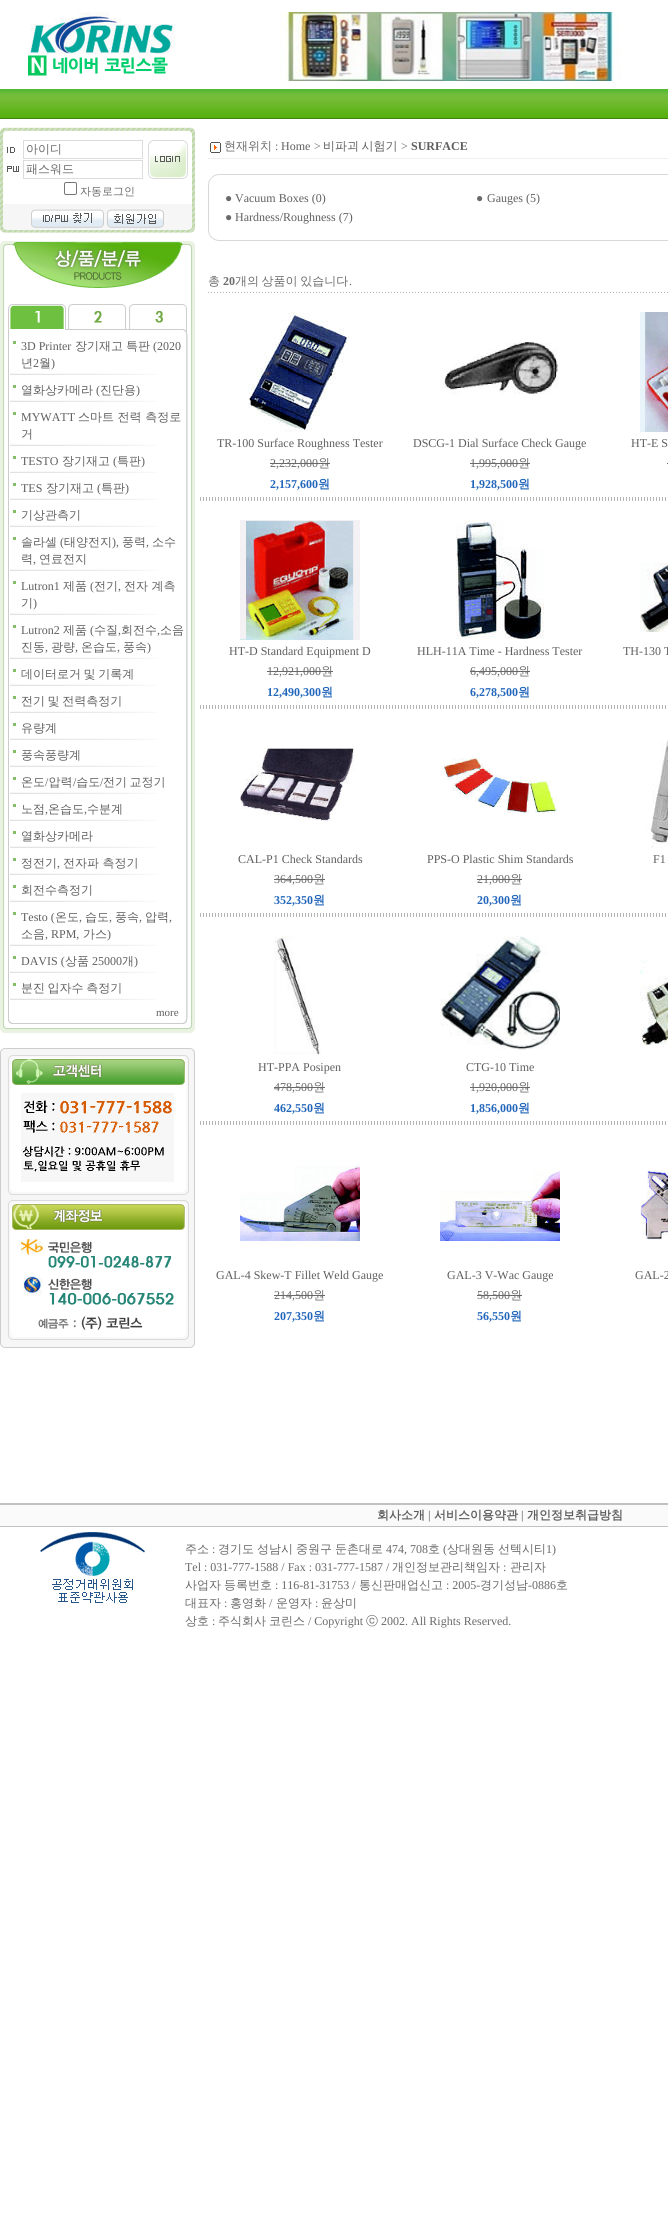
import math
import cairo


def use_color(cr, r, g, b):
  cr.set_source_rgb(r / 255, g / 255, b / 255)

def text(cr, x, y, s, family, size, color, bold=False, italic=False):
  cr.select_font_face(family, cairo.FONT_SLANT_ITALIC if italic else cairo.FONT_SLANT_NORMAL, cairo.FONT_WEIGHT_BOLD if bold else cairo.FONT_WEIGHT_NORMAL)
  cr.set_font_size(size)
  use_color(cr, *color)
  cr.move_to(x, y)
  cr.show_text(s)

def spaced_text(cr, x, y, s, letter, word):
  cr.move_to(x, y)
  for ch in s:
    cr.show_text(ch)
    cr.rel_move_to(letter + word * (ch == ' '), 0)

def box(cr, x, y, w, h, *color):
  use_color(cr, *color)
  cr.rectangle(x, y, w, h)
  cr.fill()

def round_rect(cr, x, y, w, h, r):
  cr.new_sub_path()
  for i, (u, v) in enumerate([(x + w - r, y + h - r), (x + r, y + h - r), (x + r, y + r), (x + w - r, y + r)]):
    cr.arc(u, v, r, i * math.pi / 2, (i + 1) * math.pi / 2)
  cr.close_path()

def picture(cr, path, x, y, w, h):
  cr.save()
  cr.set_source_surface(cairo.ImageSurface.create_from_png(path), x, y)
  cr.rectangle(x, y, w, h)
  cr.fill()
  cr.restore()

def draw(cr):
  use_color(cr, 255, 255, 255)
  cr.paint()
  picture(cr, "img_01.png", 28, 12, 147, 64)
  picture(cr, "img_02.png", 279, 12, 342, 69)
  picture(cr, "img_03.png", 0, 89, 668, 30)
  picture(cr, "img_04.png", 0, 127, 195, 8)
  picture(cr, "img_05.png", 0, 135, 195, 69)
  picture(cr, "img_06.png", 7, 147, 8, 6)
  cr.rectangle(23.5, 140.5, 119, 18)
  use_color(cr, 220, 220, 220)
  cr.set_line_width(1)
  cr.stroke()
  picture(cr, "img_07.png", 148, 140, 40, 39)
  picture(cr, "img_08.png", 7, 166, 12, 6)
  cr.rectangle(23.5, 160.5, 119, 18)
  cr.stroke()
  round_rect(cr, 64.5, 182.5, 12, 12, 1.5)
  use_color(cr, 118, 118, 118)
  cr.stroke()
  picture(cr, "img_09.png", 0, 204, 195, 29)
  picture(cr, "img_10.png", 31, 209, 73, 19)
  picture(cr, "img_11.png", 107, 209, 57, 19)
  picture(cr, "img_12.png", 0, 241, 195, 48)
  picture(cr, "img_13.png", 0, 289, 195, 735)
  picture(cr, "img_14.png", 8, 304, 180, 30)
  picture(cr, "img_15.png", 8, 334, 180, 684)
  box(cr, 13, 341, 3, 3, 133, 188, 102)
  picture(cr, "img_16.png", 10, 373, 148, 2)
  box(cr, 13, 385, 3, 3, 133, 188, 102)
  picture(cr, "img_16.png", 10, 400, 148, 2)
  box(cr, 13, 412, 3, 3, 133, 188, 102)
  picture(cr, "img_16.png", 10, 444, 148, 2)
  box(cr, 13, 456, 3, 3, 133, 188, 102)
  picture(cr, "img_16.png", 10, 471, 148, 2)
  box(cr, 13, 483, 3, 3, 133, 188, 102)
  picture(cr, "img_16.png", 10, 498, 148, 2)
  box(cr, 13, 510, 3, 3, 133, 188, 102)
  picture(cr, "img_16.png", 10, 525, 148, 2)
  box(cr, 13, 537, 3, 3, 133, 188, 102)
  picture(cr, "img_16.png", 10, 569, 148, 2)
  box(cr, 13, 581, 3, 3, 133, 188, 102)
  picture(cr, "img_16.png", 10, 613, 148, 2)
  box(cr, 13, 625, 3, 3, 133, 188, 102)
  picture(cr, "img_16.png", 10, 657, 148, 2)
  box(cr, 13, 669, 3, 3, 133, 188, 102)
  picture(cr, "img_16.png", 10, 684, 148, 2)
  box(cr, 13, 696, 3, 3, 133, 188, 102)
  picture(cr, "img_16.png", 10, 711, 148, 2)
  box(cr, 13, 723, 3, 3, 133, 188, 102)
  picture(cr, "img_16.png", 10, 738, 148, 2)
  box(cr, 13, 750, 3, 3, 133, 188, 102)
  picture(cr, "img_16.png", 10, 765, 148, 2)
  box(cr, 13, 777, 3, 3, 133, 188, 102)
  picture(cr, "img_16.png", 10, 792, 148, 2)
  box(cr, 13, 804, 3, 3, 133, 188, 102)
  picture(cr, "img_16.png", 10, 819, 148, 2)
  box(cr, 13, 831, 3, 3, 133, 188, 102)
  picture(cr, "img_16.png", 10, 846, 148, 2)
  box(cr, 13, 858, 3, 3, 133, 188, 102)
  picture(cr, "img_16.png", 10, 873, 148, 2)
  box(cr, 13, 885, 3, 3, 133, 188, 102)
  picture(cr, "img_16.png", 10, 900, 148, 2)
  box(cr, 13, 912, 3, 3, 133, 188, 102)
  picture(cr, "img_16.png", 10, 944, 148, 2)
  box(cr, 13, 956, 3, 3, 133, 188, 102)
  picture(cr, "img_16.png", 10, 971, 148, 2)
  box(cr, 13, 983, 3, 3, 133, 188, 102)
  picture(cr, "img_16.png", 10, 998, 148, 2)
  picture(cr, "img_17.png", 8, 1018, 180, 6)
  picture(cr, "img_18.png", 0, 1024, 195, 9)
  picture(cr, "img_19.png", 0, 1048, 195, 300)
  picture(cr, "img_20.png", 21, 1093, 153, 89)
  picture(cr, "img_21.png", 21, 1239, 153, 91)
  picture(cr, "img_22.png", 210, 142, 11, 11)
  box(cr, 208, 158, 460, 1, 239, 239, 239)
  picture(cr, "img_23.png", 208, 174, 11, 11)
  box(cr, 219, 174, 449, 1, 216, 216, 216)
  box(cr, 208, 185, 1, 46, 216, 216, 216)
  picture(cr, "img_24.png", 208, 231, 11, 10)
  box(cr, 219, 240, 449, 1, 216, 216, 216)
  picture(cr, "img_25.png", 208, 292, 460, 1)
  picture(cr, "img_26.png", 248, 312, 101, 120)
  box(cr, 270, 463, 60, 1, 105, 105, 105)
  picture(cr, "img_27.png", 441, 342, 117, 53)
  box(cr, 470, 463, 60, 1, 105, 105, 105)
  picture(cr, "img_28.png", 640, 312, 28, 120)
  box(cr, 667, 463, 1, 1, 105, 105, 105)
  picture(cr, "img_29.png", 200, 497, 466, 4)
  picture(cr, "img_30.png", 240, 520, 120, 120)
  box(cr, 267, 671, 66, 1, 105, 105, 105)
  picture(cr, "img_31.png", 456, 520, 88, 119)
  box(cr, 470, 671, 60, 1, 105, 105, 105)
  picture(cr, "img_32.png", 640, 562, 28, 70)
  picture(cr, "img_29.png", 200, 705, 466, 4)
  picture(cr, "img_33.png", 240, 748, 115, 73)
  box(cr, 274, 879, 51, 1, 105, 105, 105)
  picture(cr, "img_34.png", 441, 758, 116, 55)
  box(cr, 477, 879, 45, 1, 105, 105, 105)
  picture(cr, "img_35.png", 646, 740, 22, 108)
  picture(cr, "img_29.png", 200, 913, 466, 4)
  picture(cr, "img_36.png", 640, 959, 28, 86)
  picture(cr, "img_37.png", 274, 936, 47, 119)
  box(cr, 274, 1087, 51, 1, 105, 105, 105)
  picture(cr, "img_38.png", 440, 936, 120, 114)
  box(cr, 470, 1087, 60, 1, 105, 105, 105)
  picture(cr, "img_29.png", 200, 1121, 466, 4)
  picture(cr, "img_39.png", 240, 1165, 120, 76)
  box(cr, 274, 1295, 51, 1, 105, 105, 105)
  picture(cr, "img_40.png", 440, 1170, 120, 71)
  box(cr, 477, 1295, 45, 1, 105, 105, 105)
  picture(cr, "img_41.png", 640, 1170, 28, 70)
  box(cr, 0, 1505, 668, 21, 250, 250, 250)
  box(cr, 0, 1503, 668, 2, 193, 193, 193)
  box(cr, 0, 1526, 668, 1, 193, 193, 193)
  picture(cr, "img_42.png", 40, 1532, 105, 71)
  text(cr, 26, 153, "아이디", "WenQuanYi Zen Hei Medium", 12, (105, 105, 105))
  text(cr, 26, 173, "패스워드", "WenQuanYi Zen Hei Medium", 12, (105, 105, 105))
  text(cr, 80, 195, "자동로그인", "WenQuanYi Zen Hei Medium", 11, (105, 105, 105))
  text(cr, 21, 350, "3D Printer", "Liberation Serif", 12, (95, 95, 95))
  text(cr, 75, 350, "장기재고", "WenQuanYi Zen Hei Medium", 12, (95, 95, 95))
  text(cr, 126, 350, "특판", "WenQuanYi Zen Hei Medium", 12, (95, 95, 95))
  text(cr, 153, 350, "(2020", "Liberation Serif", 12, (95, 95, 95))
  text(cr, 21, 367, "년", "WenQuanYi Zen Hei Medium", 12, (95, 95, 95))
  text(cr, 33, 367, "2", "Liberation Serif", 12, (95, 95, 95))
  text(cr, 39, 367, "월", "WenQuanYi Zen Hei Medium", 12, (95, 95, 95))
  text(cr, 51, 367, ")", "Liberation Serif", 12, (95, 95, 95))
  text(cr, 21, 394, "열화상카메라", "WenQuanYi Zen Hei Medium", 12, (95, 95, 95))
  text(cr, 96, 394, "(", "Liberation Serif", 12, (95, 95, 95))
  text(cr, 100, 394, "진단용", "WenQuanYi Zen Hei Medium", 12, (95, 95, 95))
  text(cr, 136, 394, ")", "Liberation Serif", 12, (95, 95, 95))
  text(cr, 21, 421, "MYWATT", "Liberation Serif", 12, (95, 95, 95))
  text(cr, 78, 421, "스마트 전력 측정로", "WenQuanYi Zen Hei Medium", 12, (95, 95, 95))
  text(cr, 21, 438, "거", "WenQuanYi Zen Hei Medium", 12, (95, 95, 95))
  text(cr, 21, 465, "TESTO", "Liberation Serif", 12, (95, 95, 95))
  text(cr, 62, 465, "장기재고", "WenQuanYi Zen Hei Medium", 12, (95, 95, 95))
  text(cr, 113, 465, "(", "Liberation Serif", 12, (95, 95, 95))
  text(cr, 117, 465, "특판", "WenQuanYi Zen Hei Medium", 12, (95, 95, 95))
  text(cr, 141, 465, ")", "Liberation Serif", 12, (95, 95, 95))
  text(cr, 21, 492, "TES", "Liberation Serif", 12, (95, 95, 95))
  text(cr, 46, 492, "장기재고", "WenQuanYi Zen Hei Medium", 12, (95, 95, 95))
  text(cr, 97, 492, "(", "Liberation Serif", 12, (95, 95, 95))
  text(cr, 101, 492, "특판", "WenQuanYi Zen Hei Medium", 12, (95, 95, 95))
  text(cr, 125, 492, ")", "Liberation Serif", 12, (95, 95, 95))
  text(cr, 21, 519, "기상관측기", "WenQuanYi Zen Hei Medium", 12, (95, 95, 95))
  text(cr, 21, 546, "솔라셀", "WenQuanYi Zen Hei Medium", 12, (95, 95, 95))
  text(cr, 60, 546, "(", "Liberation Serif", 12, (95, 95, 95))
  text(cr, 64, 546, "태양전지", "WenQuanYi Zen Hei Medium", 12, (95, 95, 95))
  text(cr, 112, 546, "),", "Liberation Serif", 12, (95, 95, 95))
  text(cr, 122, 546, "풍력", "WenQuanYi Zen Hei Medium", 12, (95, 95, 95))
  text(cr, 146, 546, ",", "Liberation Serif", 12, (95, 95, 95))
  text(cr, 152, 546, "소수", "WenQuanYi Zen Hei Medium", 12, (95, 95, 95))
  text(cr, 21, 563, "력", "WenQuanYi Zen Hei Medium", 12, (95, 95, 95))
  text(cr, 33, 563, ",", "Liberation Serif", 12, (95, 95, 95))
  text(cr, 39, 563, "연료전지", "WenQuanYi Zen Hei Medium", 12, (95, 95, 95))
  text(cr, 21, 590, "Lutron1", "Liberation Serif", 12, (95, 95, 95))
  text(cr, 63, 590, "제품", "WenQuanYi Zen Hei Medium", 12, (95, 95, 95))
  text(cr, 90, 590, "(", "Liberation Serif", 12, (95, 95, 95))
  text(cr, 94, 590, "전기", "WenQuanYi Zen Hei Medium", 12, (95, 95, 95))
  text(cr, 118, 590, ",", "Liberation Serif", 12, (95, 95, 95))
  text(cr, 124, 590, "전자 계측", "WenQuanYi Zen Hei Medium", 12, (95, 95, 95))
  text(cr, 21, 607, "기", "WenQuanYi Zen Hei Medium", 12, (95, 95, 95))
  text(cr, 33, 607, ")", "Liberation Serif", 12, (95, 95, 95))
  text(cr, 21, 634, "Lutron2", "Liberation Serif", 12, (95, 95, 95))
  text(cr, 63, 634, "제품", "WenQuanYi Zen Hei Medium", 12, (95, 95, 95))
  text(cr, 90, 634, "(", "Liberation Serif", 12, (95, 95, 95))
  text(cr, 94, 634, "수질", "WenQuanYi Zen Hei Medium", 12, (95, 95, 95))
  text(cr, 118, 634, ",", "Liberation Serif", 12, (95, 95, 95))
  text(cr, 121, 634, "회전수", "WenQuanYi Zen Hei Medium", 12, (95, 95, 95))
  text(cr, 157, 634, ",", "Liberation Serif", 12, (95, 95, 95))
  text(cr, 160, 634, "소음", "WenQuanYi Zen Hei Medium", 12, (95, 95, 95))
  text(cr, 21, 651, "진동", "WenQuanYi Zen Hei Medium", 12, (95, 95, 95))
  text(cr, 45, 651, ",", "Liberation Serif", 12, (95, 95, 95))
  text(cr, 51, 651, "광량", "WenQuanYi Zen Hei Medium", 12, (95, 95, 95))
  text(cr, 75, 651, ",", "Liberation Serif", 12, (95, 95, 95))
  text(cr, 81, 651, "온습도", "WenQuanYi Zen Hei Medium", 12, (95, 95, 95))
  text(cr, 117, 651, ",", "Liberation Serif", 12, (95, 95, 95))
  text(cr, 123, 651, "풍속", "WenQuanYi Zen Hei Medium", 12, (95, 95, 95))
  text(cr, 147, 651, ")", "Liberation Serif", 12, (95, 95, 95))
  cr.select_font_face("WenQuanYi Zen Hei Medium")
  spaced_text(cr, 21, 678, "데이터로거 및 기록계", 0, -1)
  spaced_text(cr, 21, 705, "전기 및 전력측정기", 0, -1)
  text(cr, 21, 732, "유량계", "WenQuanYi Zen Hei Medium", 12, (95, 95, 95))
  text(cr, 21, 759, "풍속풍량계", "WenQuanYi Zen Hei Medium", 12, (95, 95, 95))
  text(cr, 21, 786, "온도 압력 습도", "WenQuanYi Zen Hei Medium", 12, (95, 95, 95))
  spaced_text(cr, 103, 786, "전기 교정기", 0, -1)
  text(cr, 45, 786, "/", "Liberation Serif", 12, (95, 95, 95))
  text(cr, 73, 786, "/", "Liberation Serif", 12, (95, 95, 95))
  text(cr, 100, 786, "/", "Liberation Serif", 12, (95, 95, 95))
  text(cr, 21, 813, "노점", "WenQuanYi Zen Hei Medium", 12, (95, 95, 95))
  text(cr, 45, 813, ",", "Liberation Serif", 12, (95, 95, 95))
  text(cr, 48, 813, "온습도", "WenQuanYi Zen Hei Medium", 12, (95, 95, 95))
  text(cr, 84, 813, ",", "Liberation Serif", 12, (95, 95, 95))
  text(cr, 87, 813, "수분계", "WenQuanYi Zen Hei Medium", 12, (95, 95, 95))
  text(cr, 21, 840, "열화상카메라", "WenQuanYi Zen Hei Medium", 12, (95, 95, 95))
  text(cr, 21, 867, "정전기", "WenQuanYi Zen Hei Medium", 12, (95, 95, 95))
  text(cr, 57, 867, ",", "Liberation Serif", 12, (95, 95, 95))
  text(cr, 63, 867, "전자파 측정기", "WenQuanYi Zen Hei Medium", 12, (95, 95, 95))
  text(cr, 21, 894, "회전수측정기", "WenQuanYi Zen Hei Medium", 12, (95, 95, 95))
  text(cr, 21, 921, "Testo (", "Liberation Serif", 12, (95, 95, 95))
  text(cr, 55, 921, "온도", "WenQuanYi Zen Hei Medium", 12, (95, 95, 95))
  text(cr, 79, 921, ",", "Liberation Serif", 12, (95, 95, 95))
  text(cr, 85, 921, "습도", "WenQuanYi Zen Hei Medium", 12, (95, 95, 95))
  text(cr, 109, 921, ",", "Liberation Serif", 12, (95, 95, 95))
  text(cr, 115, 921, "풍속", "WenQuanYi Zen Hei Medium", 12, (95, 95, 95))
  text(cr, 139, 921, ",", "Liberation Serif", 12, (95, 95, 95))
  text(cr, 145, 921, "압력", "WenQuanYi Zen Hei Medium", 12, (95, 95, 95))
  text(cr, 169, 921, ",", "Liberation Serif", 12, (95, 95, 95))
  text(cr, 21, 938, "소음", "WenQuanYi Zen Hei Medium", 12, (95, 95, 95))
  text(cr, 45, 938, ", RPM,", "Liberation Serif", 12, (95, 95, 95))
  text(cr, 83, 938, "가스", "WenQuanYi Zen Hei Medium", 12, (95, 95, 95))
  text(cr, 107, 938, ")", "Liberation Serif", 12, (95, 95, 95))
  text(cr, 21, 965, "DAVIS (", "Liberation Serif", 12, (95, 95, 95))
  text(cr, 65, 965, "상품", "WenQuanYi Zen Hei Medium", 12, (95, 95, 95))
  text(cr, 92, 965, "25000", "Liberation Serif", 12, (95, 95, 95))
  text(cr, 122, 965, "개", "WenQuanYi Zen Hei Medium", 12, (95, 95, 95))
  text(cr, 134, 965, ")", "Liberation Serif", 12, (95, 95, 95))
  cr.select_font_face("WenQuanYi Zen Hei Medium")
  spaced_text(cr, 21, 992, "분진 입자수 측정기", 0, -1)
  text(cr, 156, 1016, "more", "Liberation Serif", 11, (95, 95, 95))
  text(cr, 224, 150, "현재위치", "WenQuanYi Zen Hei Medium", 12, (105, 105, 105))
  text(cr, 275, 150, ":", "Liberation Serif", 12, (105, 105, 105))
  text(cr, 281, 150, "Home", "Liberation Serif", 12, (95, 95, 95))
  text(cr, 314, 150, ">", "Liberation Serif", 12, (105, 105, 105))
  cr.select_font_face("WenQuanYi Zen Hei Medium")
  use_color(cr, 95, 95, 95)
  spaced_text(cr, 323, 150, "비파괴 시험기", 0, -1)
  text(cr, 401, 150, ">", "Liberation Serif", 12, (105, 105, 105))
  text(cr, 411, 150, "SURFACE", "Liberation Serif", 12, (95, 95, 95), bold=True)
  text(cr, 225, 202, "●", "Liberation Serif", 12, (105, 105, 105))
  text(cr, 235, 202, "Vacuum Boxes (0)", "Liberation Serif", 12, (95, 95, 95))
  text(cr, 476, 202, "●", "Liberation Serif", 12, (105, 105, 105))
  text(cr, 487, 202, "Gauges (5)", "Liberation Serif", 12, (95, 95, 95))
  text(cr, 225, 221, "●", "Liberation Serif", 12, (105, 105, 105))
  text(cr, 235, 221, "Hardness/Roughness (7)", "Liberation Serif", 12, (95, 95, 95))
  text(cr, 208, 285, "총", "WenQuanYi Zen Hei Medium", 12, (105, 105, 105))
  text(cr, 223, 285, "20", "Liberation Serif", 12, (105, 105, 105), bold=True)
  cr.select_font_face("WenQuanYi Zen Hei Medium")
  spaced_text(cr, 235, 285, "개의 상품이 있습니다", 0, -1)
  text(cr, 349, 285, ".", "Liberation Serif", 12, (105, 105, 105))
  text(cr, 217, 447, "TR-100 Surface Roughness Tester", "Liberation Serif", 12, (95, 95, 95))
  text(cr, 270, 467, "2,232,000", "Liberation Serif", 12, (105, 105, 105))
  text(cr, 318, 467, "원", "WenQuanYi Zen Hei Medium", 12, (105, 105, 105))
  text(cr, 270, 488, "2,157,600", "Liberation Serif", 12, (34, 102, 187), bold=True)
  text(cr, 318, 488, "원", "WenQuanYi Zen Hei", 12, (34, 102, 187), bold=True)
  text(cr, 413, 447, "DSCG-1 Dial Surface Check Gauge", "Liberation Serif", 12, (95, 95, 95))
  text(cr, 470, 467, "1,995,000", "Liberation Serif", 12, (105, 105, 105))
  text(cr, 518, 467, "원", "WenQuanYi Zen Hei Medium", 12, (105, 105, 105))
  text(cr, 470, 488, "1,928,500", "Liberation Serif", 12, (34, 102, 187), bold=True)
  text(cr, 518, 488, "원", "WenQuanYi Zen Hei", 12, (34, 102, 187), bold=True)
  text(cr, 631, 447, "HT-E S", "Liberation Serif", 12, (95, 95, 95))
  text(cr, 229, 655, "HT-D Standard Equipment D", "Liberation Serif", 12, (95, 95, 95))
  text(cr, 267, 675, "12,921,000", "Liberation Serif", 12, (105, 105, 105))
  text(cr, 321, 675, "원", "WenQuanYi Zen Hei Medium", 12, (105, 105, 105))
  text(cr, 267, 696, "12,490,300", "Liberation Serif", 12, (34, 102, 187), bold=True)
  text(cr, 321, 696, "원", "WenQuanYi Zen Hei", 12, (34, 102, 187), bold=True)
  text(cr, 417, 655, "HLH-11A Time - Hardness Tester", "Liberation Serif", 12, (95, 95, 95))
  text(cr, 470, 675, "6,495,000", "Liberation Serif", 12, (105, 105, 105))
  text(cr, 518, 675, "원", "WenQuanYi Zen Hei Medium", 12, (105, 105, 105))
  text(cr, 470, 696, "6,278,500", "Liberation Serif", 12, (34, 102, 187), bold=True)
  text(cr, 518, 696, "원", "WenQuanYi Zen Hei", 12, (34, 102, 187), bold=True)
  text(cr, 623, 655, "TH-130 T", "Liberation Serif", 12, (95, 95, 95))
  text(cr, 238, 863, "CAL-P1 Check Standards", "Liberation Serif", 12, (95, 95, 95))
  text(cr, 274, 883, "364,500", "Liberation Serif", 12, (105, 105, 105))
  text(cr, 313, 883, "원", "WenQuanYi Zen Hei Medium", 12, (105, 105, 105))
  text(cr, 274, 904, "352,350", "Liberation Serif", 12, (34, 102, 187), bold=True)
  text(cr, 313, 904, "원", "WenQuanYi Zen Hei", 12, (34, 102, 187), bold=True)
  text(cr, 427, 863, "PPS-O Plastic Shim Standards", "Liberation Serif", 12, (95, 95, 95))
  text(cr, 477, 883, "21,000", "Liberation Serif", 12, (105, 105, 105))
  text(cr, 510, 883, "원", "WenQuanYi Zen Hei Medium", 12, (105, 105, 105))
  text(cr, 477, 904, "20,300", "Liberation Serif", 12, (34, 102, 187), bold=True)
  text(cr, 510, 904, "원", "WenQuanYi Zen Hei", 12, (34, 102, 187), bold=True)
  text(cr, 653, 863, "F1", "Liberation Serif", 12, (95, 95, 95))
  text(cr, 258, 1071, "HT-PPA Posipen", "Liberation Serif", 12, (95, 95, 95))
  text(cr, 274, 1091, "478,500", "Liberation Serif", 12, (105, 105, 105))
  text(cr, 313, 1091, "원", "WenQuanYi Zen Hei Medium", 12, (105, 105, 105))
  text(cr, 274, 1112, "462,550", "Liberation Serif", 12, (34, 102, 187), bold=True)
  text(cr, 313, 1112, "원", "WenQuanYi Zen Hei", 12, (34, 102, 187), bold=True)
  text(cr, 466, 1071, "CTG-10 Time", "Liberation Serif", 12, (95, 95, 95))
  text(cr, 470, 1091, "1,920,000", "Liberation Serif", 12, (105, 105, 105))
  text(cr, 518, 1091, "원", "WenQuanYi Zen Hei Medium", 12, (105, 105, 105))
  text(cr, 470, 1112, "1,856,000", "Liberation Serif", 12, (34, 102, 187), bold=True)
  text(cr, 518, 1112, "원", "WenQuanYi Zen Hei", 12, (34, 102, 187), bold=True)
  text(cr, 216, 1279, "GAL-4 Skew-T Fillet Weld Gauge", "Liberation Serif", 12, (95, 95, 95))
  text(cr, 274, 1299, "214,500", "Liberation Serif", 12, (105, 105, 105))
  text(cr, 313, 1299, "원", "WenQuanYi Zen Hei Medium", 12, (105, 105, 105))
  text(cr, 274, 1320, "207,350", "Liberation Serif", 12, (34, 102, 187), bold=True)
  text(cr, 313, 1320, "원", "WenQuanYi Zen Hei", 12, (34, 102, 187), bold=True)
  text(cr, 447, 1279, "GAL-3 V-Wac Gauge", "Liberation Serif", 12, (95, 95, 95))
  text(cr, 477, 1299, "58,500", "Liberation Serif", 12, (105, 105, 105))
  text(cr, 510, 1299, "원", "WenQuanYi Zen Hei Medium", 12, (105, 105, 105))
  text(cr, 477, 1320, "56,550", "Liberation Serif", 12, (34, 102, 187), bold=True)
  text(cr, 510, 1320, "원", "WenQuanYi Zen Hei", 12, (34, 102, 187), bold=True)
  text(cr, 635, 1279, "GAL-2", "Liberation Serif", 12, (95, 95, 95))
  text(cr, 377, 1519, "회사소개", "WenQuanYi Zen Hei", 12, (95, 95, 95), bold=True)
  text(cr, 428, 1519, "|", "Liberation Serif", 12, (129, 129, 129), bold=True)
  text(cr, 434, 1519, "서비스이용약관", "WenQuanYi Zen Hei", 12, (95, 95, 95), bold=True)
  text(cr, 521, 1519, "|", "Liberation Serif", 12, (129, 129, 129), bold=True)
  text(cr, 527, 1519, "개인정보취급방침", "WenQuanYi Zen Hei", 12, (95, 95, 95), bold=True)
  text(cr, 185, 1553, "주소", "WenQuanYi Zen Hei Medium", 12, (105, 105, 105))
  text(cr, 212, 1553, ":", "Liberation Serif", 12, (105, 105, 105))
  text(cr, 218, 1553, "경기도", "WenQuanYi Zen Hei Medium", 12, (105, 105, 105))
  text(cr, 257, 1553, "성남시", "WenQuanYi Zen Hei Medium", 12, (105, 105, 105))
  text(cr, 296, 1553, "중원구", "WenQuanYi Zen Hei Medium", 12, (105, 105, 105))
  text(cr, 335, 1553, "둔촌대로", "WenQuanYi Zen Hei Medium", 12, (105, 105, 105))
  text(cr, 386, 1553, "474, 708", "Liberation Serif", 12, (105, 105, 105))
  text(cr, 428, 1553, "호", "WenQuanYi Zen Hei Medium", 12, (105, 105, 105))
  text(cr, 443, 1553, "(", "Liberation Serif", 12, (105, 105, 105))
  text(cr, 447, 1553, "상대원동", "WenQuanYi Zen Hei Medium", 12, (105, 105, 105))
  text(cr, 498, 1553, "선텍시티", "WenQuanYi Zen Hei Medium", 12, (105, 105, 105))
  text(cr, 546, 1553, "1)", "Liberation Serif", 12, (105, 105, 105))
  text(cr, 185, 1571, "Tel : 031-777-1588 / Fax : 031-777-1587 /", "Liberation Serif", 12, (105, 105, 105))
  text(cr, 392, 1571, "개인정보관리책임자", "WenQuanYi Zen Hei Medium", 12, (105, 105, 105))
  text(cr, 503, 1571, ":", "Liberation Serif", 12, (105, 105, 105))
  text(cr, 510, 1571, "관리자", "WenQuanYi Zen Hei Medium", 12, (105, 105, 105))
  text(cr, 185, 1589, "사업자", "WenQuanYi Zen Hei Medium", 12, (105, 105, 105))
  text(cr, 224, 1589, "등록번호", "WenQuanYi Zen Hei Medium", 12, (105, 105, 105))
  text(cr, 275, 1589, ": 116-81-31753 /", "Liberation Serif", 12, (105, 105, 105))
  text(cr, 359, 1589, "통신판매업신고", "WenQuanYi Zen Hei Medium", 12, (105, 105, 105))
  text(cr, 446, 1589, ": 2005-", "Liberation Serif", 12, (105, 105, 105))
  text(cr, 480, 1589, "경기성남", "WenQuanYi Zen Hei Medium", 12, (105, 105, 105))
  text(cr, 528, 1589, "-0886", "Liberation Serif", 12, (105, 105, 105))
  text(cr, 556, 1589, "호", "WenQuanYi Zen Hei Medium", 12, (105, 105, 105))
  text(cr, 185, 1607, "대표자", "WenQuanYi Zen Hei Medium", 12, (105, 105, 105))
  text(cr, 224, 1607, ":", "Liberation Serif", 12, (105, 105, 105))
  text(cr, 230, 1607, "홍영화", "WenQuanYi Zen Hei Medium", 12, (105, 105, 105))
  text(cr, 269, 1607, "/", "Liberation Serif", 12, (105, 105, 105))
  text(cr, 276, 1607, "운영자", "WenQuanYi Zen Hei Medium", 12, (105, 105, 105))
  text(cr, 315, 1607, ":", "Liberation Serif", 12, (105, 105, 105))
  text(cr, 321, 1607, "윤상미", "WenQuanYi Zen Hei Medium", 12, (105, 105, 105))
  text(cr, 185, 1625, "상호", "WenQuanYi Zen Hei Medium", 12, (105, 105, 105))
  text(cr, 212, 1625, ":", "Liberation Serif", 12, (105, 105, 105))
  text(cr, 218, 1625, "주식회사", "WenQuanYi Zen Hei Medium", 12, (105, 105, 105))
  text(cr, 269, 1625, "코린스", "WenQuanYi Zen Hei Medium", 12, (105, 105, 105))
  text(cr, 308, 1625, "/ Copyright", "Liberation Serif", 12, (105, 105, 105))
  text(cr, 366, 1625, "ⓒ", "WenQuanYi Zen Hei Medium", 12, (105, 105, 105))
  text(cr, 381, 1625, "2002. All Rights Reserved.", "Liberation Serif", 12, (105, 105, 105))


surface = cairo.ImageSurface(cairo.FORMAT_RGB24, 668, 2222)
cr = cairo.Context(surface)
options = cairo.FontOptions()
options.set_hint_metrics(cairo.HINT_METRICS_OFF)
options.set_hint_style(cairo.HINT_STYLE_NONE)
cr.set_font_options(options)
cr.set_miter_limit(4)
draw(cr)
surface.write_to_png("out.png")
